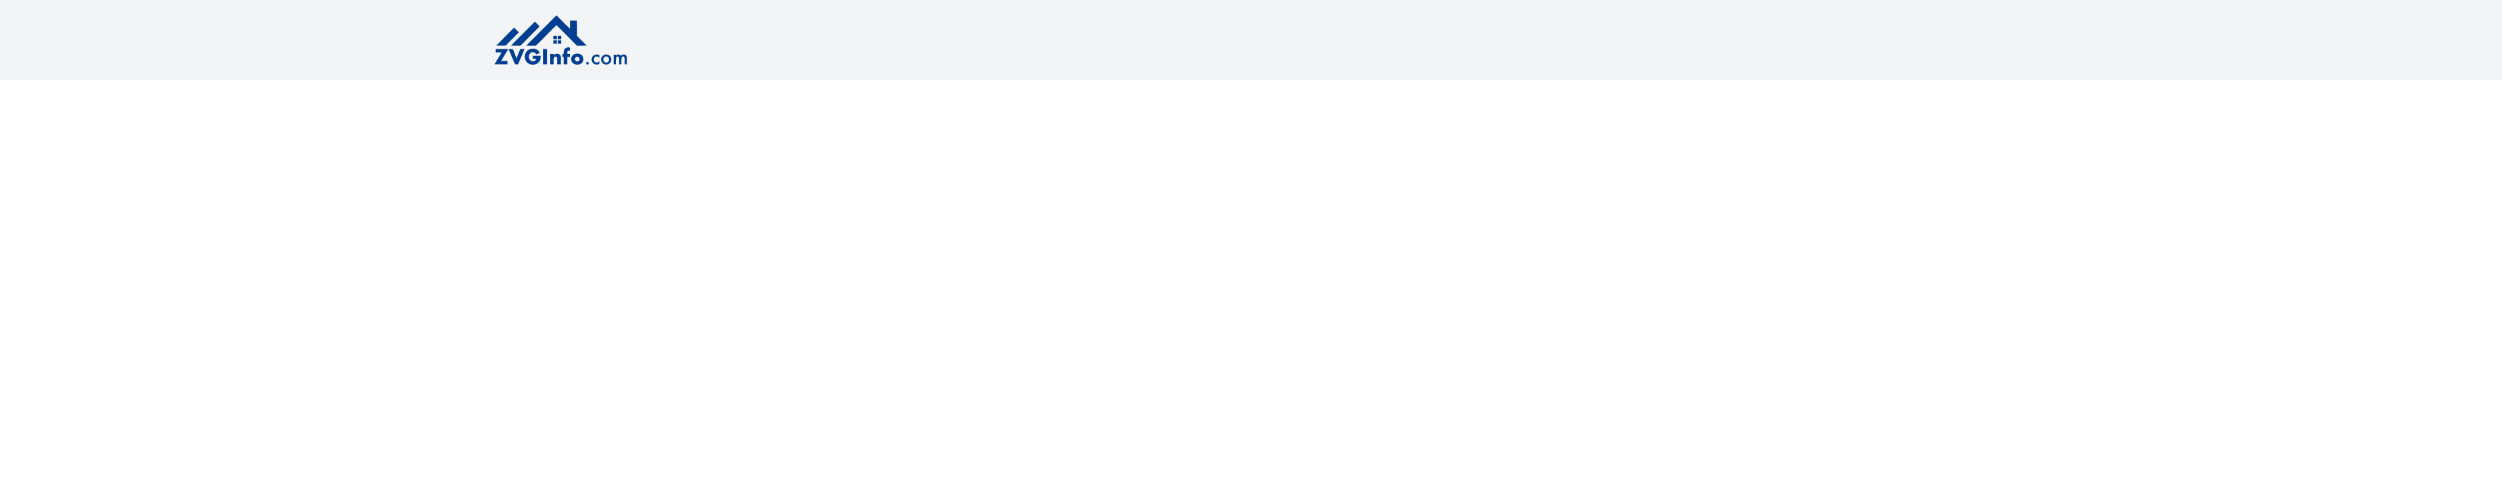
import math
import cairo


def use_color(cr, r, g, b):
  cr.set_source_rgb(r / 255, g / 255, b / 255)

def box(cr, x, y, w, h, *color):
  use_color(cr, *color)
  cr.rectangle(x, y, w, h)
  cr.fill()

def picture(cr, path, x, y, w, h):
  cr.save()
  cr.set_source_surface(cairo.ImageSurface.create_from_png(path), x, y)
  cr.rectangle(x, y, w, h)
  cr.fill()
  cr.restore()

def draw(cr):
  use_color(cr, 255, 255, 255)
  cr.paint()
  box(cr, 0, 0, 2502, 80, 243, 244, 246)
  picture(cr, "img_01.png", 494, 15, 134, 50)


surface = cairo.ImageSurface(cairo.FORMAT_RGB24, 2502, 480)
cr = cairo.Context(surface)
options = cairo.FontOptions()
options.set_hint_metrics(cairo.HINT_METRICS_OFF)
options.set_hint_style(cairo.HINT_STYLE_NONE)
cr.set_font_options(options)
cr.set_miter_limit(4)
draw(cr)
surface.write_to_png("out.png")
